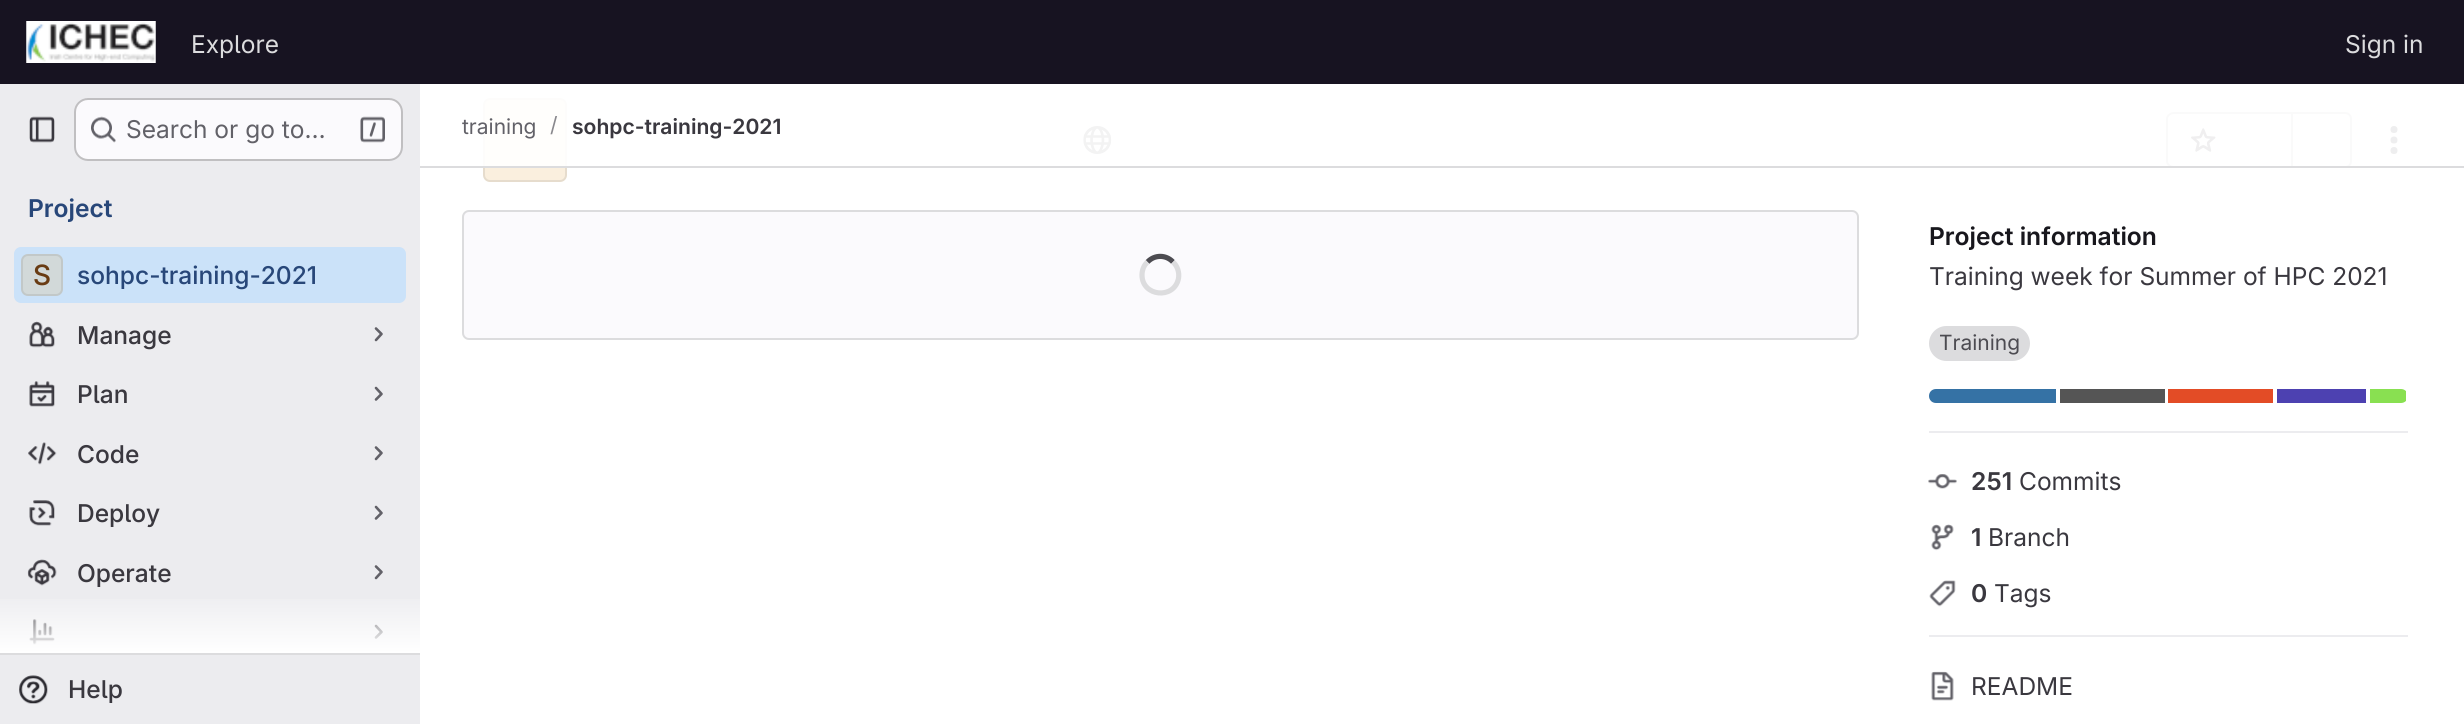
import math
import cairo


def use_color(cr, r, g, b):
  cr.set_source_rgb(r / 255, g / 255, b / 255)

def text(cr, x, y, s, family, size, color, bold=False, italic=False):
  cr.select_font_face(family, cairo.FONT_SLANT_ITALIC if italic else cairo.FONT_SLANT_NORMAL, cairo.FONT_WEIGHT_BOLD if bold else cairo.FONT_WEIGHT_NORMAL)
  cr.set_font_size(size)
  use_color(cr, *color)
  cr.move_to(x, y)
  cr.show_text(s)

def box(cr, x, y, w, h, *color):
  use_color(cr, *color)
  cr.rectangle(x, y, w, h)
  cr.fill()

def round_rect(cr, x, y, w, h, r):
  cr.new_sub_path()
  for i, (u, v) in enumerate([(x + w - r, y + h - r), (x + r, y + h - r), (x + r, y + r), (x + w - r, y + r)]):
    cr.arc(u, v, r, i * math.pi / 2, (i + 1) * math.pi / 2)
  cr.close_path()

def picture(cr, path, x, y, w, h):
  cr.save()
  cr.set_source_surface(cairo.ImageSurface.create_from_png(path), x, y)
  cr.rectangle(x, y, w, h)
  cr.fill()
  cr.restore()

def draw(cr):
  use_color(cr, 255, 255, 255)
  cr.paint()
  box(cr, 0, 0, 2464, 84, 23, 19, 33)
  picture(cr, "img_01.png", 26, 21, 130, 42)
  box(cr, 0, 84, 420, 640, 236, 236, 239)
  picture(cr, "img_02.png", 29, 116, 26, 27)
  use_color(cr, 251, 250, 253)
  round_rect(cr, 74, 98, 329, 63, 14)
  cr.fill()
  round_rect(cr, 75, 99, 327, 61, 13)
  cr.set_source_rgba(0.02, 0.02, 0.024, 0.24)
  cr.stroke()
  picture(cr, "img_03.png", 91, 116, 25, 27)
  picture(cr, "img_04.png", 360, 116, 25, 27)
  box(cr, 0, 653, 420, 2, 220, 220, 222)
  use_color(cr, 203, 226, 249)
  round_rect(cr, 14, 247, 392, 56, 7)
  cr.fill()
  use_color(cr, 210, 217, 217)
  round_rect(cr, 21, 254, 42, 42, 7)
  cr.fill()
  round_rect(cr, 22, 255, 40, 40, 6)
  cr.set_source_rgba(0.02, 0.02, 0.024, 0.08)
  cr.stroke()
  picture(cr, "img_05.png", 29, 321, 26, 27)
  cr.new_path()
  cr.move_to(376, 328.5)
  cr.line_to(381.5, 334)
  cr.line_to(376, 340)
  use_color(cr, 98, 97, 104)
  cr.set_line_width(2.6)
  cr.set_line_cap(cairo.LINE_CAP_ROUND)
  cr.set_line_join(cairo.LINE_JOIN_ROUND)
  cr.stroke()
  picture(cr, "img_06.png", 29, 381, 26, 26)
  cr.new_path()
  cr.move_to(376, 388)
  cr.line_to(381.5, 394)
  cr.line_to(376, 399.5)
  cr.stroke()
  picture(cr, "img_07.png", 28, 442, 29, 23)
  cr.new_path()
  cr.move_to(376, 447.5)
  cr.line_to(381.5, 453)
  cr.line_to(376, 459)
  cr.stroke()
  picture(cr, "img_08.png", 29, 500, 26, 26)
  cr.new_path()
  cr.move_to(376, 507)
  cr.line_to(381.5, 513)
  cr.line_to(376, 518.5)
  cr.stroke()
  picture(cr, "img_09.png", 27, 559, 30, 27)
  cr.new_path()
  cr.move_to(376, 566.5)
  cr.line_to(381.5, 572)
  cr.line_to(376, 578)
  cr.stroke()
  picture(cr, "img_10.png", 29, 619, 26, 26)
  cr.new_path()
  cr.move_to(376, 626)
  cr.line_to(381.5, 632)
  cr.line_to(376, 637.5)
  cr.stroke()
  gradient = cairo.LinearGradient(210, 590, 210, 653)
  gradient.add_color_stop_rgba(0, 1, 1, 1, 0)
  gradient.add_color_stop_rgba(1, 1, 1, 1, 1)
  cr.set_source(gradient)
  cr.rectangle(0, 599, 420, 54)
  cr.fill()
  picture(cr, "img_11.png", 19, 675, 29, 29)
  use_color(cr, 250, 239, 222)
  round_rect(cr, 483, 98, 84, 84, 7)
  cr.fill()
  round_rect(cr, 484, 99, 82, 82, 6)
  cr.set_source_rgba(0.02, 0.02, 0.024, 0.08)
  cr.set_line_width(2)
  cr.set_line_cap(cairo.LINE_CAP_BUTT)
  cr.set_line_join(cairo.LINE_JOIN_MITER)
  cr.stroke()
  picture(cr, "img_12.png", 1083, 126, 29, 28)
  use_color(cr, 191, 191, 195)
  cr.set_fill_rule(cairo.FILL_RULE_EVEN_ODD)
  cr.new_path()
  cr.move_to(2174, 112)
  cr.line_to(2291, 112)
  cr.line_to(2291, 168)
  cr.line_to(2174, 168)
  cr.curve_to(2170, 168, 2166, 165, 2166, 161)
  cr.line_to(2166, 119)
  cr.curve_to(2166, 115, 2170, 112, 2174, 112)
  cr.close_path()
  cr.move_to(2174, 114)
  cr.line_to(2291, 114)
  cr.line_to(2291, 166)
  cr.line_to(2174, 166)
  cr.curve_to(2171, 166, 2168, 164, 2168, 161)
  cr.line_to(2168, 119)
  cr.curve_to(2168, 116, 2171, 114, 2174, 114)
  cr.close_path()
  cr.fill()
  picture(cr, "img_13.png", 2191, 128, 25, 24)
  cr.new_path()
  cr.move_to(2292, 112)
  cr.line_to(2345, 112)
  cr.curve_to(2349, 112, 2352, 115, 2352, 119)
  cr.line_to(2352, 161)
  cr.curve_to(2352, 165, 2349, 168, 2345, 168)
  cr.line_to(2292, 168)
  cr.close_path()
  cr.move_to(2292, 114)
  cr.line_to(2345, 114)
  cr.curve_to(2348, 114, 2350, 116, 2350, 119)
  cr.line_to(2350, 161)
  cr.curve_to(2350, 164, 2348, 166, 2345, 166)
  cr.line_to(2292, 166)
  cr.close_path()
  cr.fill()
  box(cr, 2291, 112, 2, 56, 191, 191, 195)
  picture(cr, "img_14.png", 2390, 126, 8, 28)
  cr.set_source_rgba(1, 1, 1, 0.92)
  cr.rectangle(483, 98, 1915, 68)
  cr.fill()
  box(cr, 420, 166, 2044, 2, 220, 220, 222)
  use_color(cr, 251, 250, 253)
  round_rect(cr, 463, 211, 1395, 128, 6)
  cr.fill_preserve()
  use_color(cr, 220, 220, 222)
  cr.stroke()
  cr.new_path()
  cr.move_to(1147.5, 262)
  cr.curve_to(1154.5, 254.5, 1166, 254.5, 1173, 262)
  use_color(cr, 76, 75, 81)
  cr.set_line_width(5.2)
  cr.stroke()
  cr.new_path()
  cr.move_to(1173, 262)
  cr.curve_to(1177.5, 266, 1179.5, 272.5, 1178.5, 278.5)
  cr.curve_to(1174, 300, 1142, 296.5, 1142, 275)
  cr.curve_to(1142, 270, 1144, 265, 1147.5, 262)
  use_color(cr, 220, 220, 222)
  cr.stroke()
  box(cr, 1929, 431, 479, 2, 236, 236, 239)
  use_color(cr, 220, 220, 222)
  round_rect(cr, 1929, 326, 101, 35, 17.5)
  cr.fill()
  use_color(cr, 53, 114, 165)
  cr.new_path()
  cr.move_to(1936, 389)
  cr.line_to(2056, 389)
  cr.line_to(2056, 403)
  cr.line_to(1936, 403)
  cr.curve_to(1932, 403, 1929, 400, 1929, 396)
  cr.curve_to(1929, 392, 1932, 389, 1936, 389)
  cr.close_path()
  cr.fill()
  box(cr, 2060, 389, 105, 14, 85, 85, 85)
  box(cr, 2168, 389, 105, 14, 227, 76, 38)
  box(cr, 2277, 389, 89, 14, 77, 65, 177)
  cr.save()
  cr.set_fill_rule(cairo.FILL_RULE_WINDING)
  round_rect(cr, 1929, 389, 479, 14, 7)
  cr.clip()
  box(cr, 2370, 389, 36, 14, 137, 224, 81)
  cr.restore()
  box(cr, 1929, 635, 479, 2, 236, 236, 239)
  picture(cr, "img_15.png", 1928, 474, 29, 15)
  picture(cr, "img_16.png", 1931, 524, 23, 27)
  picture(cr, "img_17.png", 1929, 580, 27, 27)
  picture(cr, "img_18.png", 1931, 671, 23, 30)
  text(cr, 191, 53, "Explore", "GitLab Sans", 24.5, (220, 220, 222))
  text(cr, 2345, 53, "Sign in", "GitLab Sans", 24.5, (220, 220, 222))
  text(cr, 126, 138, "Search or go to…", "GitLab Sans", 24.5, (98, 97, 104))
  text(cr, 28, 217, "Project", "GitLab Sans SemiBold", 24.5, (40, 71, 121))
  text(cr, 33, 285, "S", "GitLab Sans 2 Medium", 28, (105, 60, 20))
  text(cr, 77, 284, "sohpc-training-2021", "GitLab Sans Medium", 24.5, (40, 71, 121))
  text(cr, 77, 344, "Manage", "GitLab Sans Medium", 24.5, (58, 56, 63))
  text(cr, 77, 403, "Plan", "GitLab Sans Medium", 24.5, (58, 56, 63))
  text(cr, 77, 463, "Code", "GitLab Sans Medium", 24.5, (58, 56, 63))
  text(cr, 77, 522, "Deploy", "GitLab Sans Medium", 24.5, (58, 56, 63))
  text(cr, 77, 582, "Operate", "GitLab Sans Medium", 24.5, (58, 56, 63))
  text(cr, 68, 698, "Help", "GitLab Sans Medium", 24.5, (58, 56, 63))
  text(cr, 462, 134, "training", "GitLab Sans", 21, (98, 97, 104))
  text(cr, 550, 132, "/", "GitLab Sans", 21, (137, 136, 141))
  text(cr, 572, 134, "sohpc-training-2021", "GitLab Sans SemiBold", 21, (58, 56, 63))
  text(cr, 1929, 245, "Project information", "GitLab Sans SemiBold", 24.5, (24, 23, 29))
  text(cr, 1929, 285, "Training week for Summer of HPC 2021", "GitLab Sans", 24.5, (58, 56, 63))
  text(cr, 1939, 350, "Training", "GitLab Sans", 21, (76, 75, 81))
  text(cr, 1971, 490, "251", "GitLab Sans SemiBold", 24.5, (58, 56, 63))
  text(cr, 2019, 490, "Commits", "GitLab Sans", 24.5, (58, 56, 63))
  text(cr, 1971, 546, "1", "GitLab Sans SemiBold", 24.5, (58, 56, 63))
  text(cr, 1988, 546, "Branch", "GitLab Sans", 24.5, (58, 56, 63))
  text(cr, 1971, 602, "0", "GitLab Sans SemiBold", 24.5, (58, 56, 63))
  text(cr, 1994, 602, "Tags", "GitLab Sans", 24.5, (58, 56, 63))
  text(cr, 1971, 695, "README", "GitLab Sans", 24.5, (58, 56, 63))


surface = cairo.ImageSurface(cairo.FORMAT_RGB24, 2464, 724)
cr = cairo.Context(surface)
options = cairo.FontOptions()
options.set_hint_metrics(cairo.HINT_METRICS_OFF)
options.set_hint_style(cairo.HINT_STYLE_NONE)
cr.set_font_options(options)
cr.set_miter_limit(4)
draw(cr)
surface.write_to_png("out.png")
